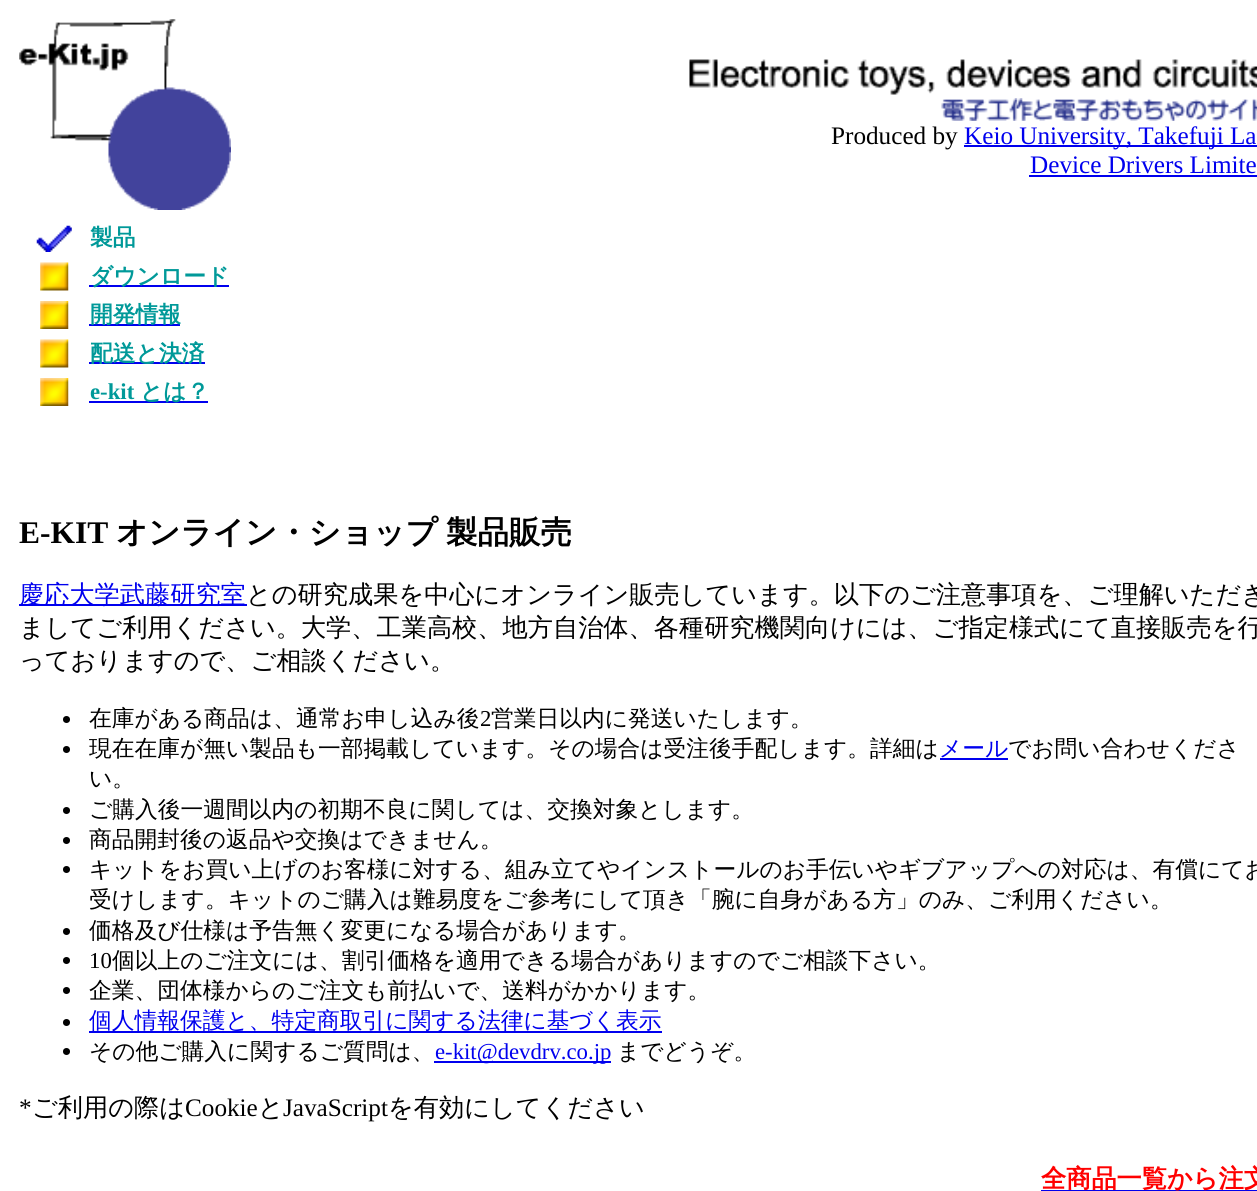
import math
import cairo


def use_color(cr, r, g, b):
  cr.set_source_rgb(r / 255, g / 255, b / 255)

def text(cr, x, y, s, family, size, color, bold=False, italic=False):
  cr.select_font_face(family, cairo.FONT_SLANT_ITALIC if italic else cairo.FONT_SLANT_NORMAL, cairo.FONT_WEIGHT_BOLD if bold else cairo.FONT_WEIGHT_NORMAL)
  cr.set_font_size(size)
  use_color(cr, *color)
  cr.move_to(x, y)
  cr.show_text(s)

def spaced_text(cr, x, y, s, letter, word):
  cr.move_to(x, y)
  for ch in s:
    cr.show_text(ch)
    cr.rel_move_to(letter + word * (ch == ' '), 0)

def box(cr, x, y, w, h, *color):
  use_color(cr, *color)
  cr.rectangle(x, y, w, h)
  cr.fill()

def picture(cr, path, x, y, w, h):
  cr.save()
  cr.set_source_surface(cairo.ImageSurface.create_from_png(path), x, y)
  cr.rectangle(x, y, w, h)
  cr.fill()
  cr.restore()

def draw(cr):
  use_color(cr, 255, 255, 255)
  cr.paint()
  picture(cr, "img_01.png", 19, 19, 212, 191)
  picture(cr, "img_02.png", 689, 59, 568, 36)
  picture(cr, "img_03.png", 941, 98, 316, 23)
  box(cr, 964, 145, 293, 2, 0, 0, 238)
  box(cr, 1029, 175, 228, 2, 0, 0, 238)
  picture(cr, "img_04.png", 36, 225, 36, 27)
  picture(cr, "img_05.png", 40, 262, 29, 29)
  box(cr, 89, 285, 140, 2, 0, 0, 238)
  picture(cr, "img_06.png", 40, 301, 29, 28)
  box(cr, 89, 324, 91, 2, 0, 0, 238)
  picture(cr, "img_05.png", 40, 339, 29, 29)
  box(cr, 89, 362, 116, 2, 0, 0, 238)
  picture(cr, "img_06.png", 40, 378, 29, 28)
  box(cr, 89, 401, 119, 2, 0, 0, 238)
  box(cr, 19, 604, 228, 2, 0, 0, 238)
  use_color(cr, 0, 0, 0)
  cr.arc(66.5, 719.5, 3.5, 0, 2 * math.pi)
  cr.fill()
  cr.arc(66.5, 749.5, 3.5, 0, 2 * math.pi)
  cr.fill()
  box(cr, 940, 758, 68, 2, 0, 0, 238)
  use_color(cr, 0, 0, 0)
  cr.arc(66.5, 810.5, 3.5, 0, 2 * math.pi)
  cr.fill()
  cr.arc(66.5, 840.5, 3.5, 0, 2 * math.pi)
  cr.fill()
  cr.arc(66.5, 869.5, 3.5, 0, 2 * math.pi)
  cr.fill()
  cr.arc(66.5, 931.5, 3.5, 0, 2 * math.pi)
  cr.fill()
  cr.arc(66.5, 960.5, 3.5, 0, 2 * math.pi)
  cr.fill()
  cr.arc(66.5, 990.5, 3.5, 0, 2 * math.pi)
  cr.fill()
  cr.arc(66.5, 1022.5, 3.5, 0, 2 * math.pi)
  cr.fill()
  box(cr, 89, 1031, 573, 2, 0, 0, 238)
  use_color(cr, 0, 0, 0)
  cr.arc(66.5, 1051.5, 3.5, 0, 2 * math.pi)
  cr.fill()
  box(cr, 434, 1061, 177, 2, 0, 0, 238)
  box(cr, 1041, 1190, 216, 1, 0, 0, 238)
  text(cr, 831, 144, "Produced by", "Liberation Serif", 25.2, (0, 0, 0))
  text(cr, 964, 144, "Keio University, Takefuji La", "Liberation Serif", 25.2, (0, 0, 238))
  text(cr, 1030, 173, "Device Drivers Limite", "Liberation Serif", 25.2, (0, 0, 238))
  text(cr, 90, 245, "製品", "WenQuanYi Zen Hei", 22.75, (0, 153, 153), bold=True)
  text(cr, 90, 284, "ダウンロード", "WenQuanYi Zen Hei", 22.75, (0, 153, 153), bold=True)
  text(cr, 90, 322, "開発情報", "WenQuanYi Zen Hei", 22.75, (0, 153, 153), bold=True)
  text(cr, 90, 361, "配送と決済", "WenQuanYi Zen Hei", 22.75, (0, 153, 153), bold=True)
  text(cr, 90, 399, "e-kit", "Liberation Serif", 22.75, (0, 153, 153), bold=True)
  text(cr, 140, 399, "とは？", "WenQuanYi Zen Hei", 22.75, (0, 153, 153), bold=True)
  text(cr, 19, 543, "E-KIT", "Liberation Serif", 31.5, (0, 0, 0), bold=True)
  cr.select_font_face("WenQuanYi Zen Hei", cairo.FONT_SLANT_NORMAL, cairo.FONT_WEIGHT_BOLD)
  spaced_text(cr, 116, 543, "オンライン・ショップ 製品販売", 0, -1)
  text(cr, 19, 603, "慶応大学武藤研究室", "WenQuanYi Zen Hei Medium", 25.2, (0, 0, 238))
  text(cr, 246, 603, "との研究成果を中心にオンライン販売しています。以下のご注意事項を、ご理解いただき", "WenQuanYi Zen Hei Medium", 25.2, (0, 0, 0))
  text(cr, 19, 636, "ましてご利用ください。大学、工業高校、地方自治体、各種研究機関向けには、ご指定様式にて直接販売を行", "WenQuanYi Zen Hei Medium", 25.2, (0, 0, 0))
  text(cr, 19, 669, "っておりますので、ご相談ください。", "WenQuanYi Zen Hei Medium", 25.2, (0, 0, 0))
  text(cr, 89, 726, "在庫がある商品は、通常お申し込み後", "WenQuanYi Zen Hei Medium", 22.75, (0, 0, 0))
  text(cr, 480, 726, "2", "Liberation Serif", 22.75, (0, 0, 0))
  text(cr, 491, 726, "営業日以内に発送いたします。", "WenQuanYi Zen Hei Medium", 22.75, (0, 0, 0))
  text(cr, 89, 756, "現在在庫が無い製品も一部掲載しています。その場合は受注後手配します。詳細は", "WenQuanYi Zen Hei Medium", 22.75, (0, 0, 0))
  text(cr, 939, 756, "メール", "WenQuanYi Zen Hei Medium", 22.75, (0, 0, 238))
  text(cr, 1008, 756, "でお問い合わせくださ", "WenQuanYi Zen Hei Medium", 22.75, (0, 0, 0))
  text(cr, 89, 786, "い。", "WenQuanYi Zen Hei Medium", 22.75, (0, 0, 0))
  text(cr, 89, 817, "ご購入後一週間以内の初期不良に関しては、交換対象とします。", "WenQuanYi Zen Hei Medium", 22.75, (0, 0, 0))
  text(cr, 89, 847, "商品開封後の返品や交換はできません。", "WenQuanYi Zen Hei Medium", 22.75, (0, 0, 0))
  text(cr, 89, 877, "キットをお買い上げのお客様に対する、組み立てやインストールのお手伝いやギブアップへの対応は、有償にてお", "WenQuanYi Zen Hei Medium", 22.75, (0, 0, 0))
  text(cr, 89, 907, "受けします。キットのご購入は難易度をご参考にして頂き「腕に自身がある方」のみ、ご利用ください。", "WenQuanYi Zen Hei Medium", 22.75, (0, 0, 0))
  text(cr, 89, 938, "価格及び仕様は予告無く変更になる場合があります。", "WenQuanYi Zen Hei Medium", 22.75, (0, 0, 0))
  text(cr, 89, 968, "10", "Liberation Serif", 22.75, (0, 0, 0))
  text(cr, 112, 968, "個以上のご注文には、割引価格を適用できる場合がありますのでご相談下さい。", "WenQuanYi Zen Hei Medium", 22.75, (0, 0, 0))
  text(cr, 89, 998, "企業、団体様からのご注文も前払いで、送料がかかります。", "WenQuanYi Zen Hei Medium", 22.75, (0, 0, 0))
  text(cr, 89, 1028, "個人情報保護と、特定商取引に関する法律に基づく表示", "WenQuanYi Zen Hei Medium", 22.75, (0, 0, 238))
  text(cr, 89, 1059, "その他ご購入に関するご質問は、", "WenQuanYi Zen Hei Medium", 22.75, (0, 0, 0))
  text(cr, 435, 1059, "e-kit@devdrv.co.jp", "Liberation Serif", 22.75, (0, 0, 238))
  text(cr, 617, 1059, "までどうぞ。", "WenQuanYi Zen Hei Medium", 22.75, (0, 0, 0))
  text(cr, 19, 1116, "*", "Liberation Serif", 25.2, (0, 0, 0))
  text(cr, 32, 1116, "ご利用の際は", "WenQuanYi Zen Hei Medium", 25.2, (0, 0, 0))
  text(cr, 185, 1116, "Cookie", "Liberation Serif", 25.2, (0, 0, 0))
  text(cr, 258, 1116, "と", "WenQuanYi Zen Hei Medium", 25.2, (0, 0, 0))
  text(cr, 283, 1116, "JavaScript", "Liberation Serif", 25.2, (0, 0, 0))
  text(cr, 388, 1116, "を有効にしてください", "WenQuanYi Zen Hei Medium", 25.2, (0, 0, 0))
  text(cr, 1041, 1187, "全商品一覧から注文", "WenQuanYi Zen Hei", 25.2, (255, 0, 0), bold=True)


surface = cairo.ImageSurface(cairo.FORMAT_RGB24, 1257, 1191)
cr = cairo.Context(surface)
options = cairo.FontOptions()
options.set_hint_metrics(cairo.HINT_METRICS_OFF)
options.set_hint_style(cairo.HINT_STYLE_NONE)
cr.set_font_options(options)
cr.set_miter_limit(4)
draw(cr)
surface.write_to_png("out.png")
